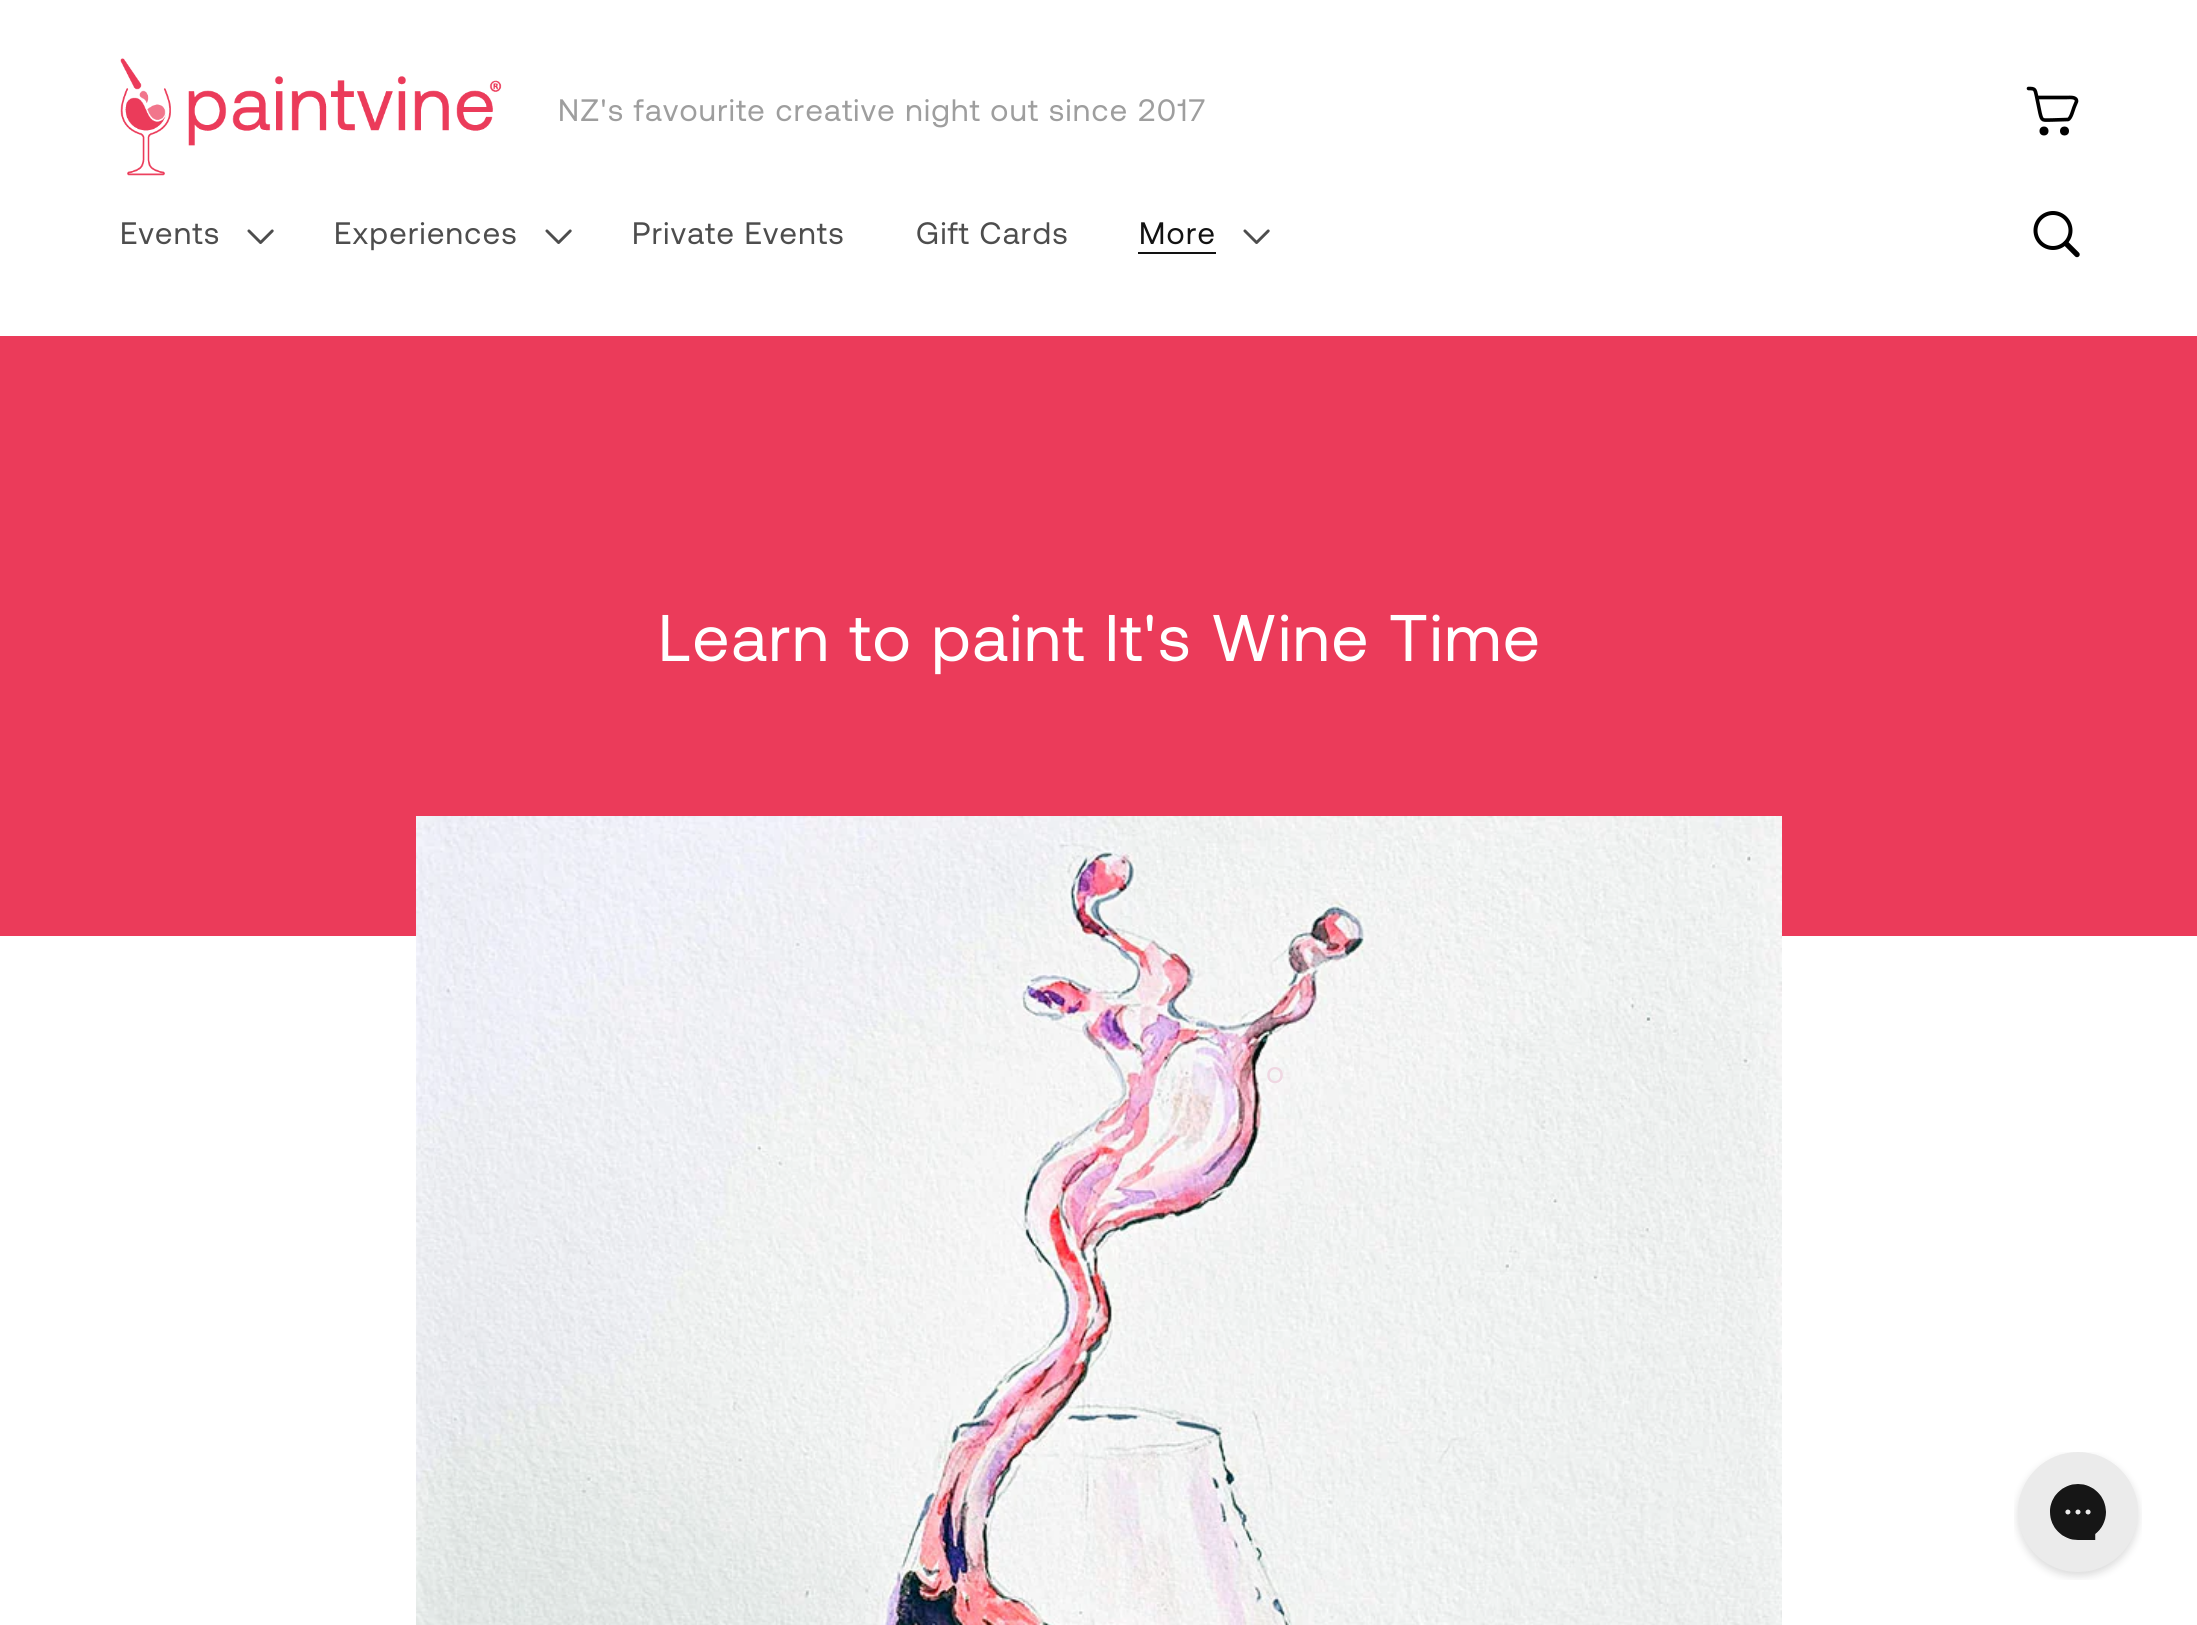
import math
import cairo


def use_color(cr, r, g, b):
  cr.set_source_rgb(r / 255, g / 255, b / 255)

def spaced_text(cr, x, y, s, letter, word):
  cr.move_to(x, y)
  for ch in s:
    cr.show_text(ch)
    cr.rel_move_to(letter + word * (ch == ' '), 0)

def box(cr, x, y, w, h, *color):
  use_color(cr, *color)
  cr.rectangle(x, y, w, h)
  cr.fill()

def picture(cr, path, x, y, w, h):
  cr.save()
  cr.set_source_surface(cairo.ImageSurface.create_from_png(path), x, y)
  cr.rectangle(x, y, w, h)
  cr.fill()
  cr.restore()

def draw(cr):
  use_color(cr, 255, 255, 255)
  cr.paint()
  picture(cr, "img_01.png", 120, 58, 382, 118)
  cr.new_path()
  cr.move_to(2028.5, 88.5)
  cr.curve_to(2035, 88.5, 2035, 89, 2036.5, 96)
  cr.line_to(2040, 113)
  cr.curve_to(2042, 121.5, 2042.5, 120, 2052, 120)
  cr.line_to(2068, 119.5)
  cr.curve_to(2071, 118.5, 2073, 110, 2074, 107.5)
  cr.line_to(2076.5, 101.5)
  cr.curve_to(2077, 96.5, 2069.5, 97.5, 2067, 97.5)
  cr.line_to(2037.5, 97.5)
  use_color(cr, 0, 0, 0)
  cr.set_line_width(3.6)
  cr.set_line_cap(cairo.LINE_CAP_ROUND)
  cr.set_line_join(cairo.LINE_JOIN_ROUND)
  cr.stroke()
  cr.arc(2044, 131, 4.5, 0, 2 * math.pi)
  cr.fill()
  cr.arc(2064.5, 131, 4.5, 0, 2 * math.pi)
  cr.fill()
  picture(cr, "img_02.png", 247, 229, 27, 15)
  picture(cr, "img_02.png", 545, 229, 27, 15)
  box(cr, 1138, 252, 78, 2, 18, 18, 18)
  picture(cr, "img_02.png", 1243, 229, 27, 15)
  cr.new_path()
  cr.move_to(2066, 243.5)
  cr.line_to(2077, 254.5)
  use_color(cr, 0, 0, 0)
  cr.set_line_width(5.4)
  cr.stroke()
  cr.arc(2053, 230.5, 17.5, 0, 2 * math.pi)
  cr.set_line_width(4)
  cr.set_line_cap(cairo.LINE_CAP_BUTT)
  cr.set_line_join(cairo.LINE_JOIN_MITER)
  cr.stroke()
  box(cr, 0, 336, 2197, 600, 235, 59, 90)
  picture(cr, "img_03.png", 416, 816, 1366, 809)
  picture(cr, "img_04.png", 2014, 1452, 128, 128)
  cr.select_font_face("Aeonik")
  cr.set_font_size(31)
  use_color(cr, 158, 158, 158)
  spaced_text(cr, 558, 121, "NZ's favourite creative night out since 2017", 1.3, 0)
  use_color(cr, 77, 77, 77)
  spaced_text(cr, 120, 244, "Events", 1.3, 0)
  spaced_text(cr, 334, 244, "Experiences", 1.3, 0)
  spaced_text(cr, 632, 244, "Private Events", 1.3, 0)
  spaced_text(cr, 916, 244, "Gift Cards", 1.3, 0)
  use_color(cr, 18, 18, 18)
  spaced_text(cr, 1139, 244, "More", 1.3, 0)
  cr.set_font_size(65.75)
  use_color(cr, 255, 255, 255)
  spaced_text(cr, 658, 661, "Learn to paint It's Wine Time", 1.75, 0)
  cr.set_font_size(31)
  use_color(cr, 239, 215, 226)
  spaced_text(cr, 1266, 1083, "o", 1.3, 0)


surface = cairo.ImageSurface(cairo.FORMAT_RGB24, 2197, 1625)
cr = cairo.Context(surface)
options = cairo.FontOptions()
options.set_hint_metrics(cairo.HINT_METRICS_OFF)
options.set_hint_style(cairo.HINT_STYLE_NONE)
cr.set_font_options(options)
cr.set_miter_limit(4)
draw(cr)
surface.write_to_png("out.png")
